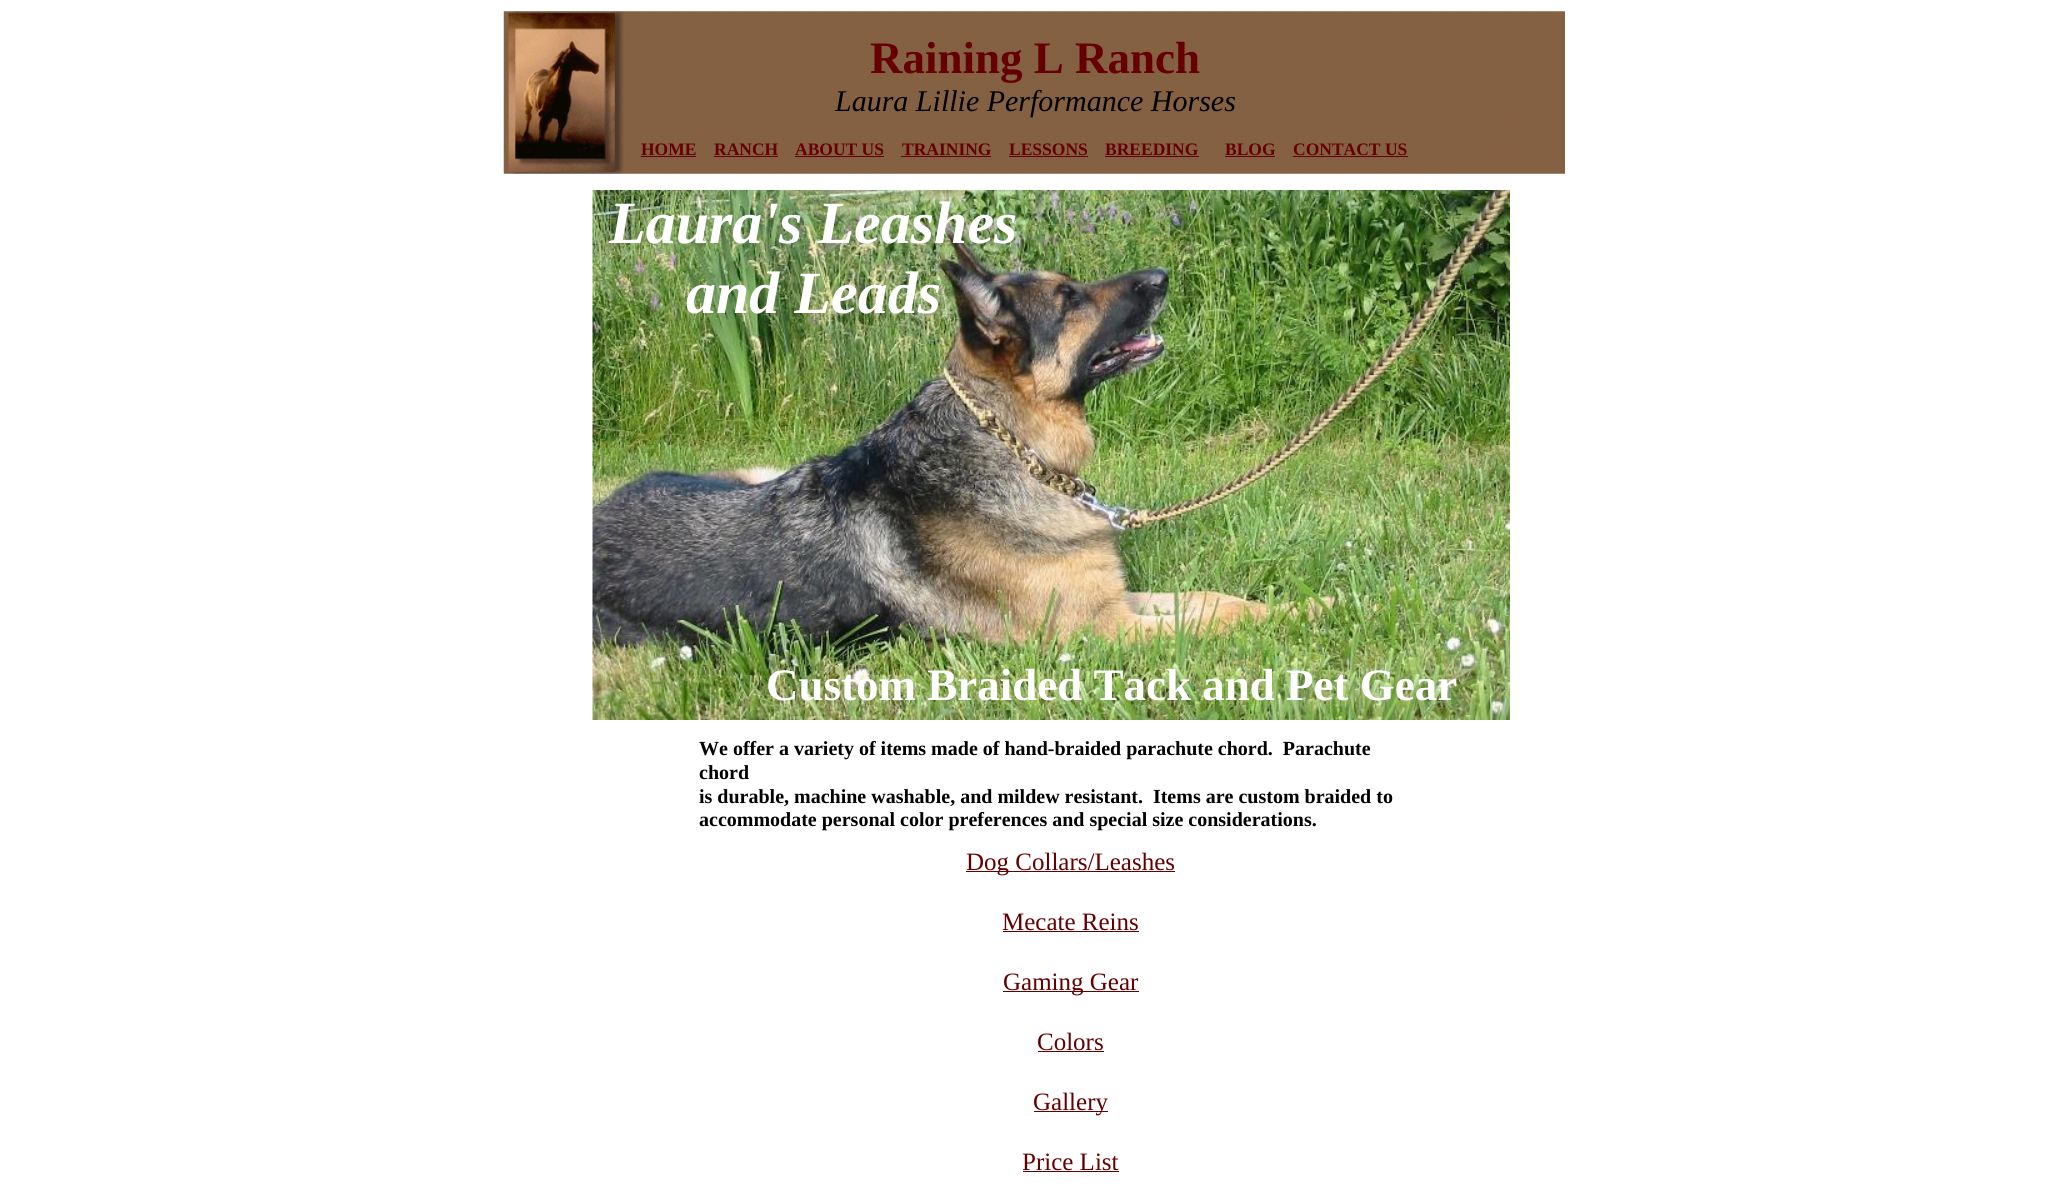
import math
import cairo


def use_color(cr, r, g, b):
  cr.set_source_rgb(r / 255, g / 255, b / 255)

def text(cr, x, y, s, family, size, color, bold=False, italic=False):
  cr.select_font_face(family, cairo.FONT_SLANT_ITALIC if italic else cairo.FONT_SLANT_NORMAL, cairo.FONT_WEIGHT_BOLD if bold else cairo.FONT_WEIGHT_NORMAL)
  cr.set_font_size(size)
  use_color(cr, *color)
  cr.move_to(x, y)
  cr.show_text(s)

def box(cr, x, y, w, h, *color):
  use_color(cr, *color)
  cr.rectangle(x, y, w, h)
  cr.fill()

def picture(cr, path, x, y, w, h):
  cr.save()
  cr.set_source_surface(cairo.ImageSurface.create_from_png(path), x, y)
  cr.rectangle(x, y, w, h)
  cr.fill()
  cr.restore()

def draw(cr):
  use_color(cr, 255, 255, 255)
  cr.paint()
  picture(cr, "img_01.png", 503, 11, 1062, 163)
  box(cr, 641, 156, 55, 1, 102, 0, 0)
  box(cr, 714, 156, 64, 1, 102, 0, 0)
  box(cr, 795, 156, 89, 1, 102, 0, 0)
  box(cr, 901, 156, 90, 1, 102, 0, 0)
  box(cr, 1009, 156, 79, 1, 102, 0, 0)
  box(cr, 1105, 156, 94, 1, 102, 0, 0)
  box(cr, 1225, 156, 50, 1, 102, 0, 0)
  box(cr, 1293, 156, 115, 1, 102, 0, 0)
  picture(cr, "img_02.png", 592, 190, 918, 530)
  box(cr, 966, 871, 209, 1, 102, 0, 0)
  box(cr, 1003, 931, 136, 1, 102, 0, 0)
  box(cr, 1003, 991, 136, 1, 102, 0, 0)
  box(cr, 1038, 1051, 66, 1, 102, 0, 0)
  box(cr, 1034, 1111, 74, 1, 102, 0, 0)
  box(cr, 1023, 1171, 96, 1, 102, 0, 0)
  text(cr, 870, 73, "Raining L Ranch", "Liberation Serif", 45, (102, 0, 0), bold=True)
  text(cr, 835, 111, "Laura Lillie Performance Horses", "Liberation Serif", 30, (0, 0, 0), italic=True)
  text(cr, 641, 155, "HOME", "Liberation Serif", 17.5, (102, 0, 0), bold=True)
  text(cr, 714, 155, "RANCH", "Liberation Serif", 17.5, (102, 0, 0), bold=True)
  text(cr, 795, 155, "ABOUT US", "Liberation Serif", 17.5, (102, 0, 0), bold=True)
  text(cr, 902, 155, "TRAINING", "Liberation Serif", 17.5, (102, 0, 0), bold=True)
  text(cr, 1009, 155, "LESSONS", "Liberation Serif", 17.5, (102, 0, 0), bold=True)
  text(cr, 1105, 155, "BREEDING", "Liberation Serif", 17.5, (102, 0, 0), bold=True)
  text(cr, 1225, 155, "BLOG", "Liberation Serif", 17.5, (102, 0, 0), bold=True)
  text(cr, 1293, 155, "CONTACT US", "Liberation Serif", 17.5, (102, 0, 0), bold=True)
  text(cr, 609, 243, "Laura's Leashes", "Liberation Serif", 60, (255, 255, 255), bold=True, italic=True)
  text(cr, 686, 313, "and Leads", "Liberation Serif", 60, (255, 255, 255), bold=True, italic=True)
  text(cr, 766, 700, "Custom Braided Tack and Pet Gear", "Liberation Serif", 45, (255, 255, 255), bold=True)
  text(cr, 699, 755, "We offer a variety of items made of hand-braided parachute chord.  Parachute", "Liberation Serif", 20, (0, 0, 0), bold=True)
  text(cr, 699, 779, "chord", "Liberation Serif", 20, (0, 0, 0), bold=True)
  text(cr, 699, 803, "is durable, machine washable, and mildew resistant.  Items are custom braided to", "Liberation Serif", 20, (0, 0, 0), bold=True)
  text(cr, 699, 826, "accommodate personal color preferences and special size considerations.", "Liberation Serif", 20, (0, 0, 0), bold=True)
  text(cr, 966, 870, "Dog Collars/Leashes", "Liberation Serif", 25, (102, 0, 0))
  text(cr, 1002, 930, "Mecate Reins", "Liberation Serif", 25, (102, 0, 0))
  text(cr, 1003, 990, "Gaming Gear", "Liberation Serif", 25, (102, 0, 0))
  text(cr, 1037, 1050, "Colors", "Liberation Serif", 25, (102, 0, 0))
  text(cr, 1033, 1110, "Gallery", "Liberation Serif", 25, (102, 0, 0))
  text(cr, 1022, 1170, "Price List", "Liberation Serif", 25, (102, 0, 0))


surface = cairo.ImageSurface(cairo.FORMAT_RGB24, 2066, 1202)
cr = cairo.Context(surface)
options = cairo.FontOptions()
options.set_hint_metrics(cairo.HINT_METRICS_OFF)
options.set_hint_style(cairo.HINT_STYLE_NONE)
cr.set_font_options(options)
cr.set_miter_limit(4)
draw(cr)
surface.write_to_png("out.png")
